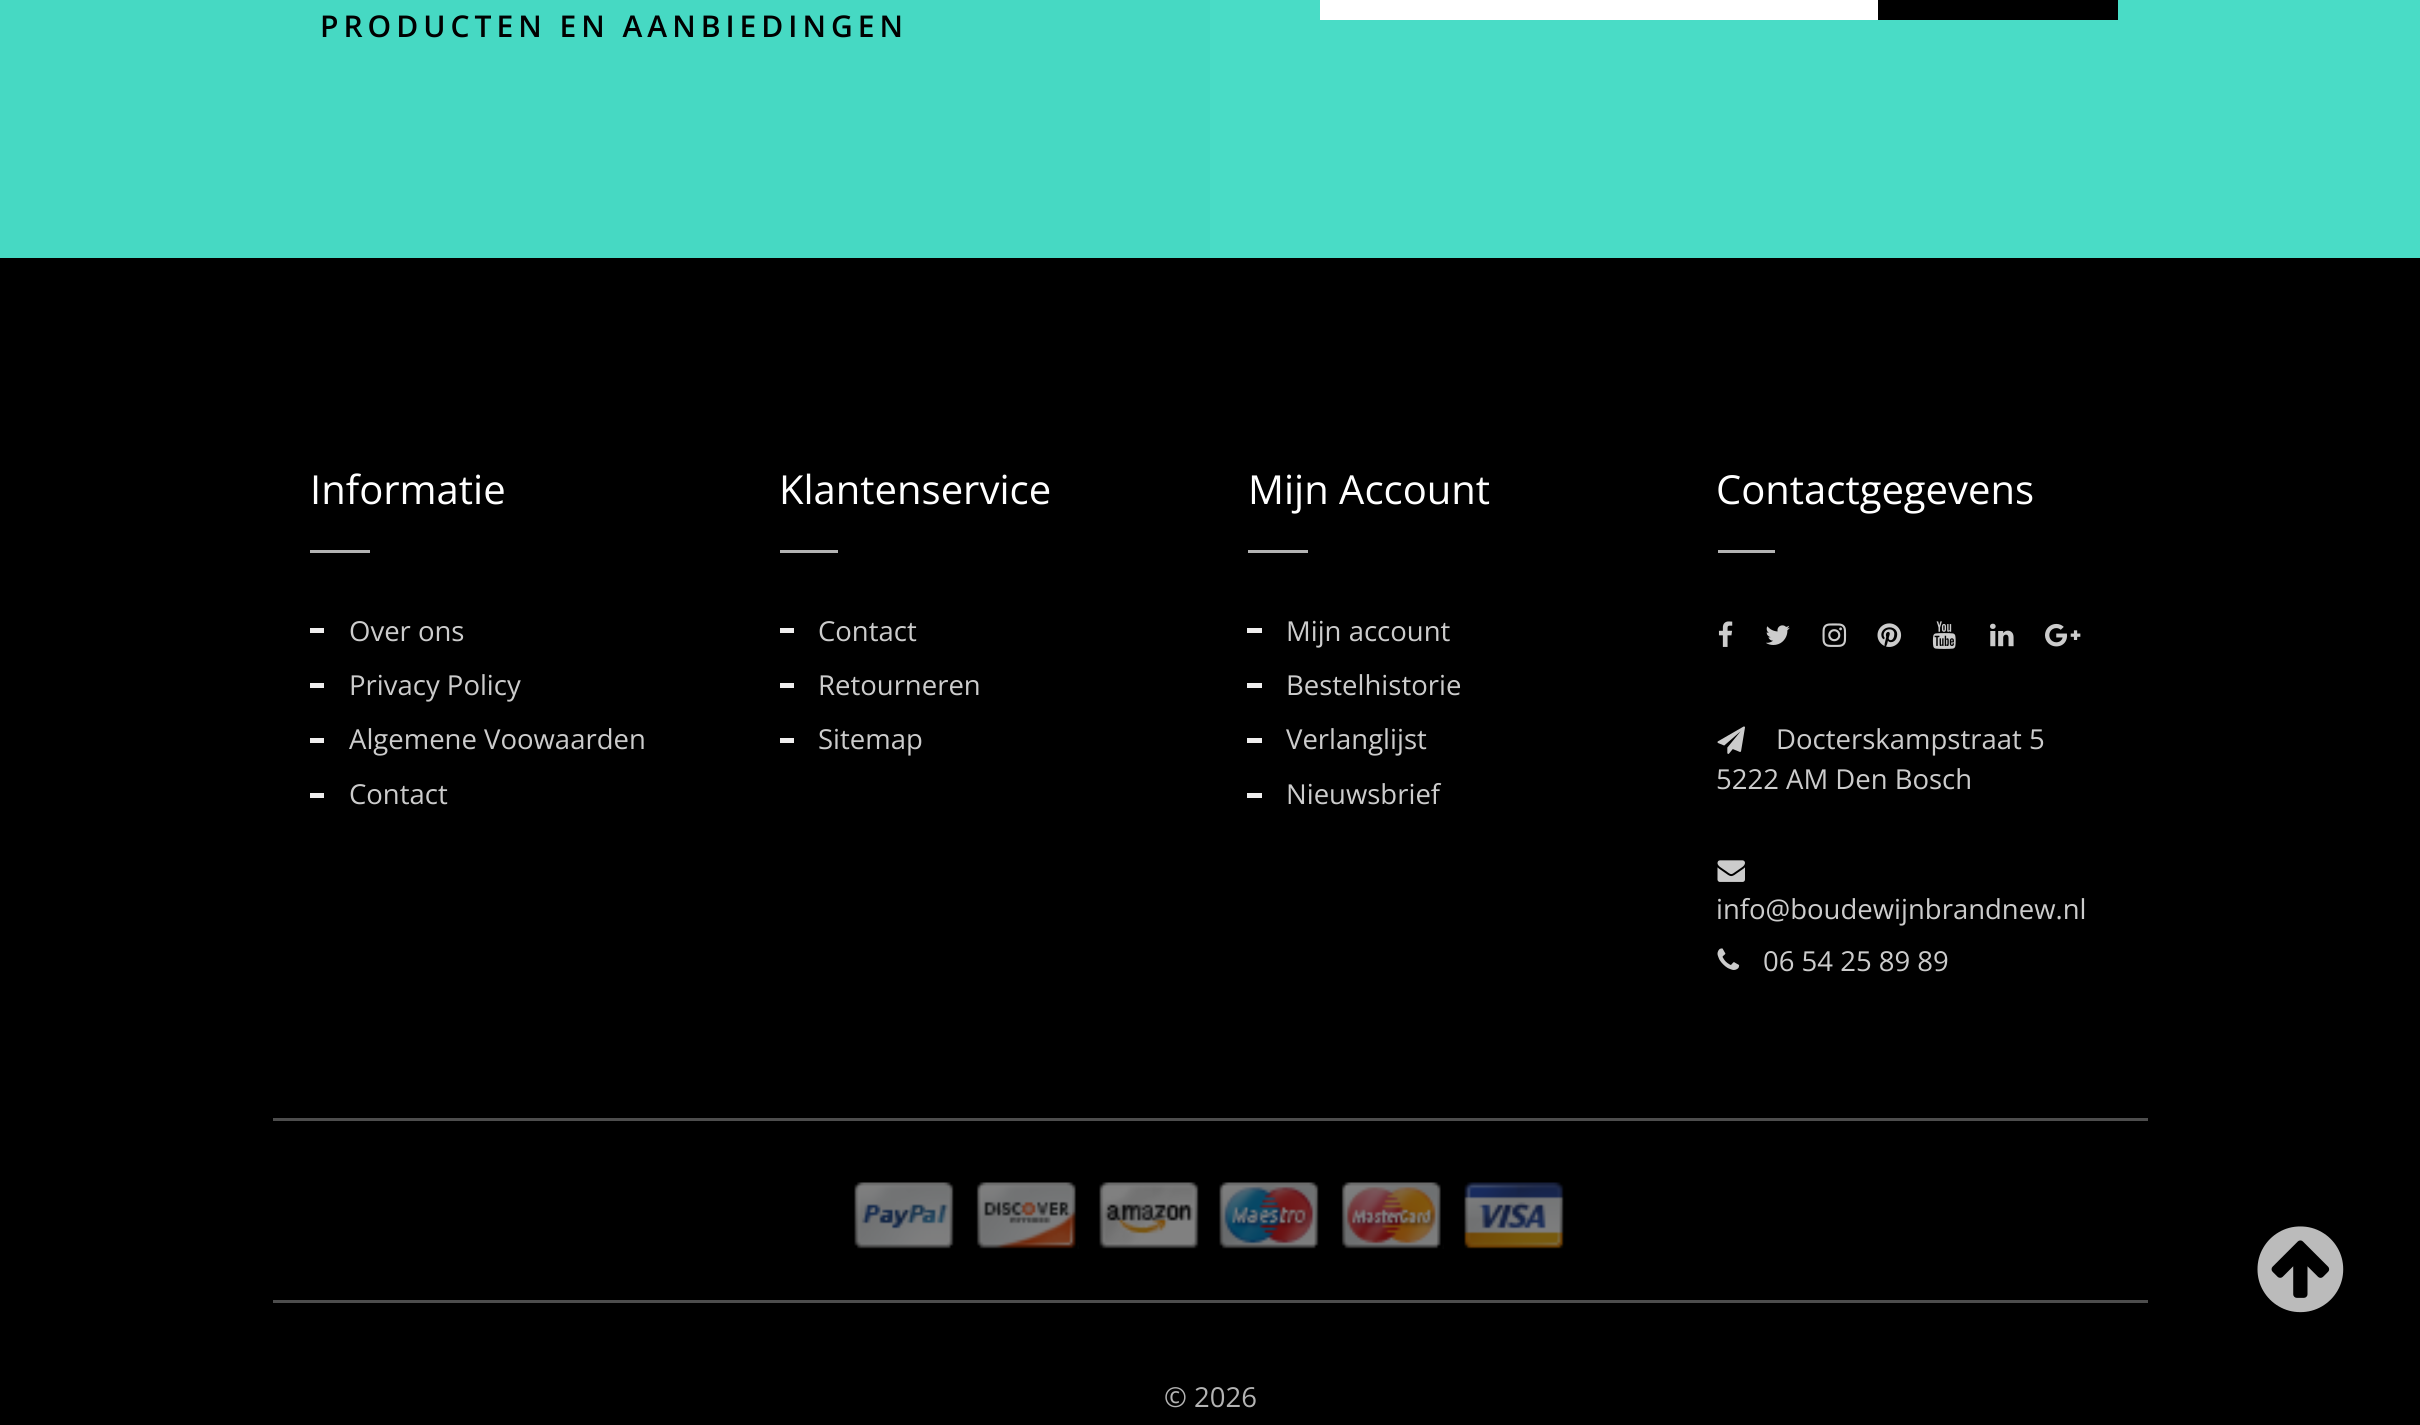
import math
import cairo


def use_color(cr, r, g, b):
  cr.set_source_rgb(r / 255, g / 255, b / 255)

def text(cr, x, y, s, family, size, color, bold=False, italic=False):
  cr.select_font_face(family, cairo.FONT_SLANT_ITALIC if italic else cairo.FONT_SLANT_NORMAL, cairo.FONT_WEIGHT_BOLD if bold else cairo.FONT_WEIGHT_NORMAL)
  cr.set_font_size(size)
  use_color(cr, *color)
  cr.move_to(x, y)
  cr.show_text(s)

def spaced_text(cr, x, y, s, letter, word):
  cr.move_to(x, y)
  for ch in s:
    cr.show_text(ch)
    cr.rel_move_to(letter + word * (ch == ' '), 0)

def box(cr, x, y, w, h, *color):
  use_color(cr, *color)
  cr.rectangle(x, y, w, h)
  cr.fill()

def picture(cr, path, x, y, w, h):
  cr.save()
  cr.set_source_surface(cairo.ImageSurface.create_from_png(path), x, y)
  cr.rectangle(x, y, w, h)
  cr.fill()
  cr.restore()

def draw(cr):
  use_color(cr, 70, 217, 195)
  cr.paint()
  box(cr, 1210, 0, 1210, 258, 73, 220, 198)
  box(cr, 1320, 0, 558, 20, 255, 255, 255)
  box(cr, 1878, 0, 240, 20, 0, 0, 0)
  box(cr, 0, 258, 2420, 1167, 0, 0, 0)
  box(cr, 310, 550, 60, 3, 179, 179, 179)
  box(cr, 310, 628, 14, 5, 239, 238, 238)
  box(cr, 310, 683, 14, 5, 239, 238, 238)
  box(cr, 310, 738, 14, 5, 239, 238, 238)
  box(cr, 310, 793, 14, 5, 239, 238, 238)
  box(cr, 780, 550, 58, 3, 179, 179, 179)
  box(cr, 780, 628, 14, 5, 239, 238, 238)
  box(cr, 780, 683, 14, 5, 239, 238, 238)
  box(cr, 780, 738, 14, 5, 239, 238, 238)
  box(cr, 1248, 550, 60, 3, 179, 179, 179)
  box(cr, 1247, 628, 15, 5, 239, 238, 238)
  box(cr, 1247, 683, 15, 5, 239, 238, 238)
  box(cr, 1247, 738, 15, 5, 239, 238, 238)
  box(cr, 1247, 793, 15, 5, 239, 238, 238)
  box(cr, 1718, 550, 57, 3, 179, 179, 179)
  picture(cr, "img_01.png", 1718, 621, 15, 26)
  picture(cr, "img_02.png", 1766, 625, 24, 20)
  picture(cr, "img_03.png", 1822, 623, 25, 24)
  picture(cr, "img_04.png", 1877, 623, 25, 24)
  picture(cr, "img_05.png", 1932, 621, 24, 28)
  picture(cr, "img_06.png", 1990, 623, 24, 24)
  picture(cr, "img_07.png", 2045, 623, 36, 24)
  picture(cr, "img_08.png", 1717, 726, 28, 28)
  picture(cr, "img_09.png", 1717, 860, 28, 22)
  picture(cr, "img_10.png", 1717, 948, 23, 22)
  box(cr, 273, 1118, 1875, 3, 77, 77, 77)
  box(cr, 273, 1300, 1875, 3, 77, 77, 77)
  picture(cr, "img_11.png", 854, 1182, 100, 67)
  picture(cr, "img_12.png", 976, 1182, 103, 67)
  picture(cr, "img_13.png", 1099, 1182, 100, 67)
  picture(cr, "img_14.png", 1219, 1182, 100, 67)
  picture(cr, "img_15.png", 1341, 1182, 103, 67)
  picture(cr, "img_16.png", 1464, 1182, 100, 67)
  picture(cr, "img_17.png", 2257, 1226, 87, 87)
  cr.select_font_face("Open Sans SemiBold")
  cr.set_font_size(30)
  use_color(cr, 0, 0, 0)
  spaced_text(cr, 320, 37, "PRODUCTEN EN AANBIEDINGEN", 5, 0)
  text(cr, 310, 504, "Informatie", "Open Sans", 40, (255, 255, 255))
  text(cr, 349, 641, "Over ons", "Open Sans", 27.5, (204, 204, 204))
  text(cr, 349, 695, "Privacy Policy", "Open Sans", 27.5, (204, 204, 204))
  text(cr, 349, 749, "Algemene Voowaarden", "Open Sans", 27.5, (204, 204, 204))
  text(cr, 349, 804, "Contact", "Open Sans", 27.5, (204, 204, 204))
  text(cr, 779, 504, "Klantenservice", "Open Sans", 40, (255, 255, 255))
  text(cr, 818, 641, "Contact", "Open Sans", 27.5, (204, 204, 204))
  text(cr, 818, 695, "Retourneren", "Open Sans", 27.5, (204, 204, 204))
  text(cr, 818, 749, "Sitemap", "Open Sans", 27.5, (204, 204, 204))
  text(cr, 1248, 504, "Mijn Account", "Open Sans", 40, (255, 255, 255))
  text(cr, 1286, 641, "Mijn account", "Open Sans", 27.5, (204, 204, 204))
  text(cr, 1286, 695, "Bestelhistorie", "Open Sans", 27.5, (204, 204, 204))
  text(cr, 1286, 749, "Verlanglijst", "Open Sans", 27.5, (204, 204, 204))
  text(cr, 1286, 804, "Nieuwsbrief", "Open Sans", 27.5, (204, 204, 204))
  text(cr, 1716, 504, "Contactgegevens", "Open Sans", 40, (255, 255, 255))
  text(cr, 1776, 749, "Docterskampstraat 5", "Open Sans", 27.5, (204, 204, 204))
  text(cr, 1716, 789, "5222 AM Den Bosch", "Open Sans", 27.5, (204, 204, 204))
  text(cr, 1716, 919, "info@boudewijnbrandnew.nl", "Open Sans", 27.5, (204, 204, 204))
  text(cr, 1763, 971, "06 54 25 89 89", "Open Sans", 27.5, (204, 204, 204))
  text(cr, 1164, 1407, "© 2026", "Open Sans", 27.5, (179, 179, 179))


surface = cairo.ImageSurface(cairo.FORMAT_RGB24, 2420, 1425)
cr = cairo.Context(surface)
options = cairo.FontOptions()
options.set_hint_metrics(cairo.HINT_METRICS_OFF)
options.set_hint_style(cairo.HINT_STYLE_NONE)
cr.set_font_options(options)
cr.set_miter_limit(4)
draw(cr)
surface.write_to_png("out.png")
